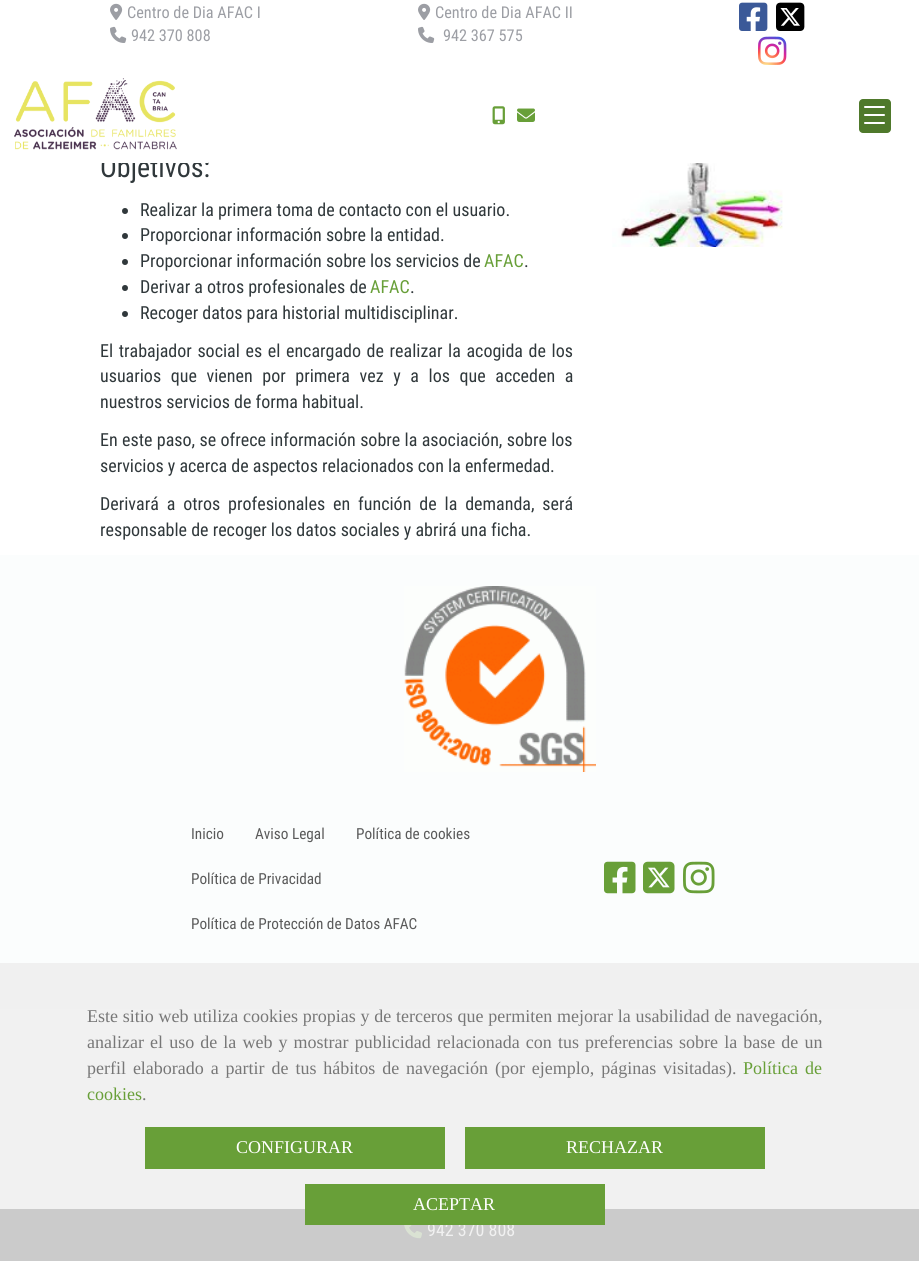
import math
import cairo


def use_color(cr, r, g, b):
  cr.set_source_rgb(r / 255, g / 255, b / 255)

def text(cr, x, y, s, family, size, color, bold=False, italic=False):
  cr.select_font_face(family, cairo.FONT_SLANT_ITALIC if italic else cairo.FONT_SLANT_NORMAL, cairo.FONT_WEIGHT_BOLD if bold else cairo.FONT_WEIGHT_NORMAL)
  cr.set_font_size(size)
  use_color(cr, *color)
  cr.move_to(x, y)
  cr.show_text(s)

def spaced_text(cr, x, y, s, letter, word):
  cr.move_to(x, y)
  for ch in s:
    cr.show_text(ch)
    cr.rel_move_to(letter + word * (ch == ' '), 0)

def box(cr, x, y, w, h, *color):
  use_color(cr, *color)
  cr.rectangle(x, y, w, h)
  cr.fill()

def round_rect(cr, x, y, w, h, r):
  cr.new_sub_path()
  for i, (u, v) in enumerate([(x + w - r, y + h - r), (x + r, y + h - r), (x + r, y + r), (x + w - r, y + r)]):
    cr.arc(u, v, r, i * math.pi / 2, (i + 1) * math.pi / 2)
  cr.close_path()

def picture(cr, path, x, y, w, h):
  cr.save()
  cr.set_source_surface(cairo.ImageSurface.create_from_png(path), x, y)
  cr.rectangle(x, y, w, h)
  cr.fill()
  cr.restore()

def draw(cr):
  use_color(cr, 255, 255, 255)
  cr.paint()
  box(cr, 0, 1009, 919, 200, 241, 241, 241)
  picture(cr, "img_01.png", 110, 3, 13, 17)
  picture(cr, "img_02.png", 110, 26, 17, 17)
  picture(cr, "img_01.png", 418, 3, 13, 17)
  picture(cr, "img_02.png", 418, 26, 17, 17)
  picture(cr, "img_03.png", 739, 2, 29, 29)
  picture(cr, "img_04.png", 776, 2, 29, 29)
  picture(cr, "img_05.png", 758, 36, 29, 29)
  picture(cr, "img_06.png", 14, 78, 163, 72)
  picture(cr, "img_07.png", 492, 106, 13, 19)
  picture(cr, "img_08.png", 517, 108, 18, 14)
  use_color(cr, 79, 121, 43)
  round_rect(cr, 859, 99, 32, 34, 4)
  cr.fill()
  use_color(cr, 255, 255, 255)
  round_rect(cr, 864, 114, 21, 2, 1)
  cr.fill()
  round_rect(cr, 864, 106, 21, 2, 1)
  cr.fill()
  round_rect(cr, 864, 122, 21, 2, 1)
  cr.fill()
  use_color(cr, 48, 56, 59)
  cr.arc(125, 211, 3, 0, 2 * math.pi)
  cr.fill()
  cr.arc(125, 236, 3, 0, 2 * math.pi)
  cr.fill()
  cr.arc(125, 262, 3, 0, 2 * math.pi)
  cr.fill()
  cr.arc(125, 288, 3, 0, 2 * math.pi)
  cr.fill()
  cr.arc(125, 314, 3, 0, 2 * math.pi)
  cr.fill()
  picture(cr, "img_09.png", 612, 163, 171, 84)
  box(cr, 0, 555, 919, 408, 251, 253, 253)
  box(cr, 0, 963, 919, 46, 240, 240, 240)
  picture(cr, "img_10.png", 404, 586, 192, 186)
  picture(cr, "img_11.png", 604, 861, 32, 33)
  picture(cr, "img_12.png", 643, 861, 32, 33)
  picture(cr, "img_13.png", 683, 861, 32, 33)
  box(cr, 145, 1127, 300, 42, 104, 159, 56)
  box(cr, 465, 1127, 300, 42, 104, 159, 56)
  box(cr, 0, 1209, 919, 52, 203, 203, 203)
  picture(cr, "img_14.png", 404, 1225, 18, 14)
  text(cr, 127, 18, "Centro de Dia AFAC I", "Roboto Condensed", 16.25, (156, 158, 164))
  text(cr, 131, 41, "942 370 808", "Roboto Condensed", 16.25, (156, 158, 164))
  text(cr, 435, 18, "Centro de Dia AFAC II", "Roboto Condensed", 16.25, (156, 158, 164))
  text(cr, 443, 41, "942 367 575", "Roboto Condensed", 16.25, (156, 158, 164))
  text(cr, 100, 177, "Objetivos:", "Roboto Condensed", 28, (48, 56, 59))
  box(cr, 101, 156, 107, 7, 255, 255, 255)
  text(cr, 140, 216, "Realizar la primera toma de contacto con el usuario.", "Roboto Condensed", 18, (48, 56, 59))
  text(cr, 140, 241, "Proporcionar información sobre la entidad.", "Roboto Condensed", 18, (48, 56, 59))
  text(cr, 140, 267, "Proporcionar información sobre los servicios de", "Roboto Condensed", 18, (48, 56, 59))
  text(cr, 484, 267, "AFAC", "Roboto Condensed", 18, (104, 159, 56))
  text(cr, 524, 267, ".", "Roboto Condensed", 18, (48, 56, 59))
  text(cr, 140, 293, "Derivar a otros profesionales de", "Roboto Condensed", 18, (48, 56, 59))
  text(cr, 370, 293, "AFAC", "Roboto Condensed", 18, (104, 159, 56))
  text(cr, 410, 293, ".", "Roboto Condensed", 18, (48, 56, 59))
  text(cr, 140, 319, "Recoger datos para historial multidisciplinar.", "Roboto Condensed", 18, (48, 56, 59))
  spaced_text(cr, 100, 357, "El trabajador social es el encargado de realizar la acogida de los", 0, 1.5)
  spaced_text(cr, 100, 382, "usuarios que vienen por primera vez y a los que acceden a", 0, 5.5)
  text(cr, 100, 408, "nuestros servicios de forma habitual.", "Roboto Condensed", 18, (48, 56, 59))
  spaced_text(cr, 100, 446, "En este paso, se ofrece información sobre la asociación, sobre los", 0, 0.25)
  text(cr, 100, 472, "servicios y acerca de aspectos relacionados con la enfermedad.", "Roboto Condensed", 18, (48, 56, 59))
  spaced_text(cr, 100, 510, "Derivará a otros profesionales en función de la demanda, será", 0, 3.75)
  text(cr, 100, 536, "responsable de recoger los datos sociales y abrirá una ficha.", "Roboto Condensed", 18, (48, 56, 59))
  text(cr, 191, 839, "Inicio", "Roboto Condensed", 15.25, (90, 90, 90))
  text(cr, 255, 839, "Aviso Legal", "Roboto Condensed", 15.25, (90, 90, 90))
  text(cr, 356, 839, "Política de cookies", "Roboto Condensed", 15.25, (90, 90, 90))
  text(cr, 191, 884, "Política de Privacidad", "Roboto Condensed", 15.25, (90, 90, 90))
  text(cr, 191, 929, "Política de Protección de Datos AFAC", "Roboto Condensed", 15.25, (90, 90, 90))
  cr.select_font_face("Liberation Serif")
  cr.set_font_size(18)
  use_color(cr, 119, 119, 119)
  spaced_text(cr, 87, 1022, "Este sitio web utiliza cookies propias y de terceros que permiten mejorar la usabilidad de navegación,", 0, 0.25)
  spaced_text(cr, 87, 1048, "analizar el uso de la web y mostrar publicidad relacionada con tus preferencias sobre la base de un", 0, 1.6)
  spaced_text(cr, 87, 1074, "perfil elaborado a partir de tus hábitos de navegación (por ejemplo, páginas visitadas).", 0, 2.4)
  use_color(cr, 104, 159, 56)
  spaced_text(cr, 743, 1074, "Política de", 0, 2.4)
  text(cr, 87, 1100, "cookies", "Liberation Serif", 18, (104, 159, 56))
  text(cr, 142, 1100, ".", "Liberation Serif", 18, (119, 119, 119))
  text(cr, 236, 1153, "CONFIGURAR", "Liberation Serif", 18, (255, 255, 255))
  text(cr, 566, 1153, "RECHAZAR", "Liberation Serif", 18, (255, 255, 255))
  text(cr, 427, 1236, "942 370 808", "Roboto Condensed", 18, (241, 241, 241))
  box(cr, 305, 1184, 300, 41, 104, 159, 56)
  text(cr, 413, 1210, "ACEPTAR", "Liberation Serif", 18, (255, 255, 255))


surface = cairo.ImageSurface(cairo.FORMAT_RGB24, 919, 1261)
cr = cairo.Context(surface)
options = cairo.FontOptions()
options.set_hint_metrics(cairo.HINT_METRICS_OFF)
options.set_hint_style(cairo.HINT_STYLE_NONE)
cr.set_font_options(options)
cr.set_miter_limit(4)
draw(cr)
surface.write_to_png("out.png")
